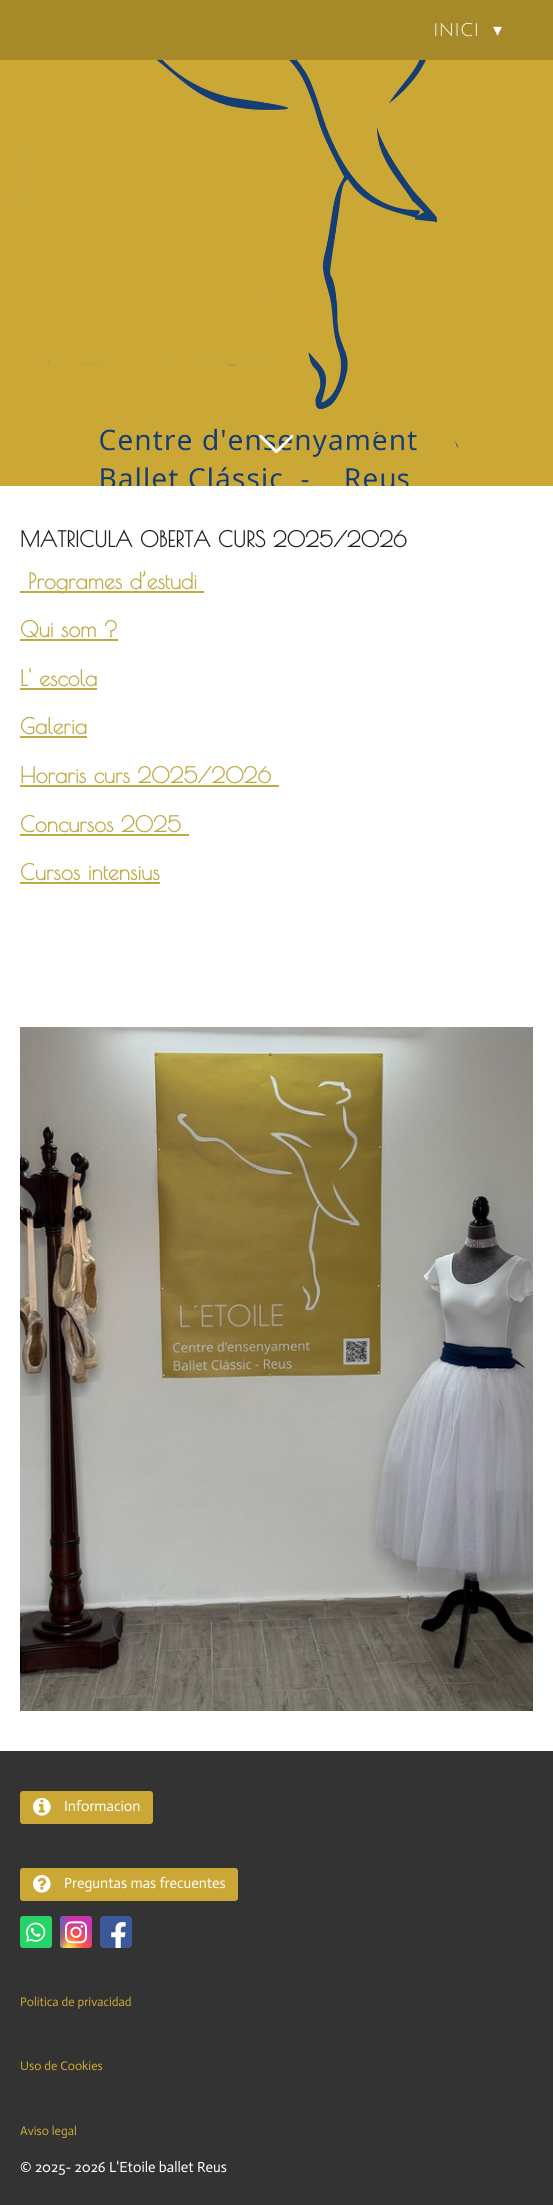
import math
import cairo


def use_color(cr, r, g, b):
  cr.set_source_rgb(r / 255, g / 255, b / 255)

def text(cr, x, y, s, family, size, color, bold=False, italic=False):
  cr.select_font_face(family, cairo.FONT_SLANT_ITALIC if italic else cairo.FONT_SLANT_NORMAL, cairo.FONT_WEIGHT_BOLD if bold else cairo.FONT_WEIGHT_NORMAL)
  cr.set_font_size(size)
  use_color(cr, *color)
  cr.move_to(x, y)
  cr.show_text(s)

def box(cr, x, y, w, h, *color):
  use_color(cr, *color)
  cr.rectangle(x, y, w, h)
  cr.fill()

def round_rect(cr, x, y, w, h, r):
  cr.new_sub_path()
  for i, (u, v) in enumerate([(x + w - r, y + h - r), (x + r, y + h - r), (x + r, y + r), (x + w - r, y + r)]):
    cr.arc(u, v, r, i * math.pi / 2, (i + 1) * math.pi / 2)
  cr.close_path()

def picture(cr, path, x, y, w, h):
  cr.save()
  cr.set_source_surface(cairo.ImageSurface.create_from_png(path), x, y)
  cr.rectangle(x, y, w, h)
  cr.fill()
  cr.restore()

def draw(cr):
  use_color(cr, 255, 255, 255)
  cr.paint()
  box(cr, 0, 0, 553, 60, 166, 137, 40)
  picture(cr, "img_01.png", 0, 60, 553, 426)
  use_color(cr, 255, 255, 255)
  cr.new_path()
  cr.move_to(261.5, 435)
  cr.line_to(276.5, 449.5)
  cr.line_to(291.5, 435)
  cr.curve_to(292, 434.5, 293.5, 435, 293.5, 436)
  cr.curve_to(293.5, 437, 278.5, 452, 277, 453)
  cr.line_to(275.5, 453)
  cr.line_to(262, 439.5)
  cr.curve_to(262, 439.5, 256.5, 435.5, 260.5, 435)
  cr.close_path()
  cr.fill()
  box(cr, 20, 591, 184, 2, 192, 170, 70)
  box(cr, 20, 639, 98, 2, 192, 170, 70)
  box(cr, 20, 688, 77, 2, 192, 170, 70)
  box(cr, 20, 736, 67, 2, 192, 170, 70)
  box(cr, 20, 785, 259, 2, 192, 170, 70)
  box(cr, 20, 834, 169, 2, 192, 170, 70)
  box(cr, 20, 882, 140, 2, 192, 170, 70)
  picture(cr, "img_02.png", 20, 1027, 513, 684)
  box(cr, 0, 1751, 553, 454, 51, 51, 51)
  use_color(cr, 203, 168, 54)
  round_rect(cr, 20, 1791, 133, 33, 3)
  cr.fill()
  picture(cr, "img_03.png", 33, 1798, 18, 18)
  round_rect(cr, 20, 1868, 218, 33, 3)
  cr.fill()
  picture(cr, "img_04.png", 33, 1875, 18, 18)
  use_color(cr, 37, 211, 102)
  round_rect(cr, 20, 1916, 32, 32, 3)
  cr.fill()
  picture(cr, "img_05.png", 26, 1922, 20, 20)
  gradient = cairo.RadialGradient(0, 0, 0, 0, 0, 1)
  gradient.set_matrix(cairo.Matrix(1 / 31, 0, 0, 1 / 29, -1 * 68 / 31, -1 * 1950 / 29))
  gradient.add_color_stop_rgba(0, 1, 0.867, 0.333, 1)
  gradient.add_color_stop_rgba(0.1, 1, 0.867, 0.333, 1)
  gradient.add_color_stop_rgba(0.5, 1, 0.329, 0.243, 1)
  gradient.add_color_stop_rgba(1, 0.784, 0.216, 0.671, 1)
  cr.set_source(gradient)
  round_rect(cr, 60, 1916, 32, 32, 3)
  cr.fill()
  gradient = cairo.RadialGradient(0, 0, 0, 0, 0, 1)
  gradient.set_matrix(cairo.Matrix(1 / 14, 0, 0, 1 / 58, -1 * 55 / 14, -1 * 1918 / 58))
  gradient.add_color_stop_rgba(0, 0.216, 0.443, 0.784, 1)
  gradient.add_color_stop_rgba(0.13, 0.216, 0.443, 0.784, 1)
  gradient.add_color_stop_rgba(1, 0.216, 0.443, 0.784, 0)
  cr.set_source(gradient)
  round_rect(cr, 60, 1916, 32, 32, 3)
  cr.fill()
  picture(cr, "img_06.png", 65, 1921, 22, 23)
  use_color(cr, 59, 89, 152)
  round_rect(cr, 100, 1916, 32, 32, 4)
  cr.fill()
  picture(cr, "img_07.png", 111, 1922, 15, 26)
  text(cr, 433, 36, "INICI", "Julius Sans One", 18, (255, 255, 255))
  text(cr, 493, 36, "▾", "DejaVu Sans", 18, (255, 255, 255))
  text(cr, 20, 547, "MATRICULA OBERTA CURS 2025/2026", "Poiret One", 21.6, (32, 32, 32), bold=True)
  text(cr, 28, 589, "Programes d’estudi", "Poiret One", 21.6, (192, 170, 70), bold=True)
  text(cr, 20, 637, "Qui som ?", "Poiret One", 21.6, (192, 170, 70), bold=True)
  text(cr, 20, 686, "L' escola", "Poiret One", 21.6, (192, 170, 70), bold=True)
  text(cr, 20, 734, "Galeria", "Poiret One", 21.6, (192, 170, 70), bold=True)
  text(cr, 20, 783, "Horaris curs 2025/2026", "Poiret One", 21.6, (192, 170, 70), bold=True)
  text(cr, 20, 832, "Concursos 2025", "Poiret One", 21.6, (192, 170, 70), bold=True)
  text(cr, 20, 880, "Cursos intensius", "Poiret One", 21.6, (192, 170, 70), bold=True)
  text(cr, 64, 1811, "Informacion", "Actor", 14.75, (255, 255, 255))
  text(cr, 64, 1888, "Preguntas mas frecuentes", "Actor", 14.75, (255, 255, 255))
  text(cr, 20, 2006, "Politica de privacidad", "Actor", 12.5, (203, 168, 54))
  text(cr, 20, 2070, "Uso de Cookies", "Actor", 12.5, (203, 168, 54))
  text(cr, 20, 2135, "Aviso legal", "Actor", 12.5, (203, 168, 54))
  text(cr, 20, 2172, "© 2025- 2026 L'Etoile ballet Reus", "Actor", 14.75, (255, 255, 255))


surface = cairo.ImageSurface(cairo.FORMAT_RGB24, 553, 2205)
cr = cairo.Context(surface)
options = cairo.FontOptions()
options.set_hint_metrics(cairo.HINT_METRICS_OFF)
options.set_hint_style(cairo.HINT_STYLE_NONE)
cr.set_font_options(options)
cr.set_miter_limit(4)
draw(cr)
surface.write_to_png("out.png")
